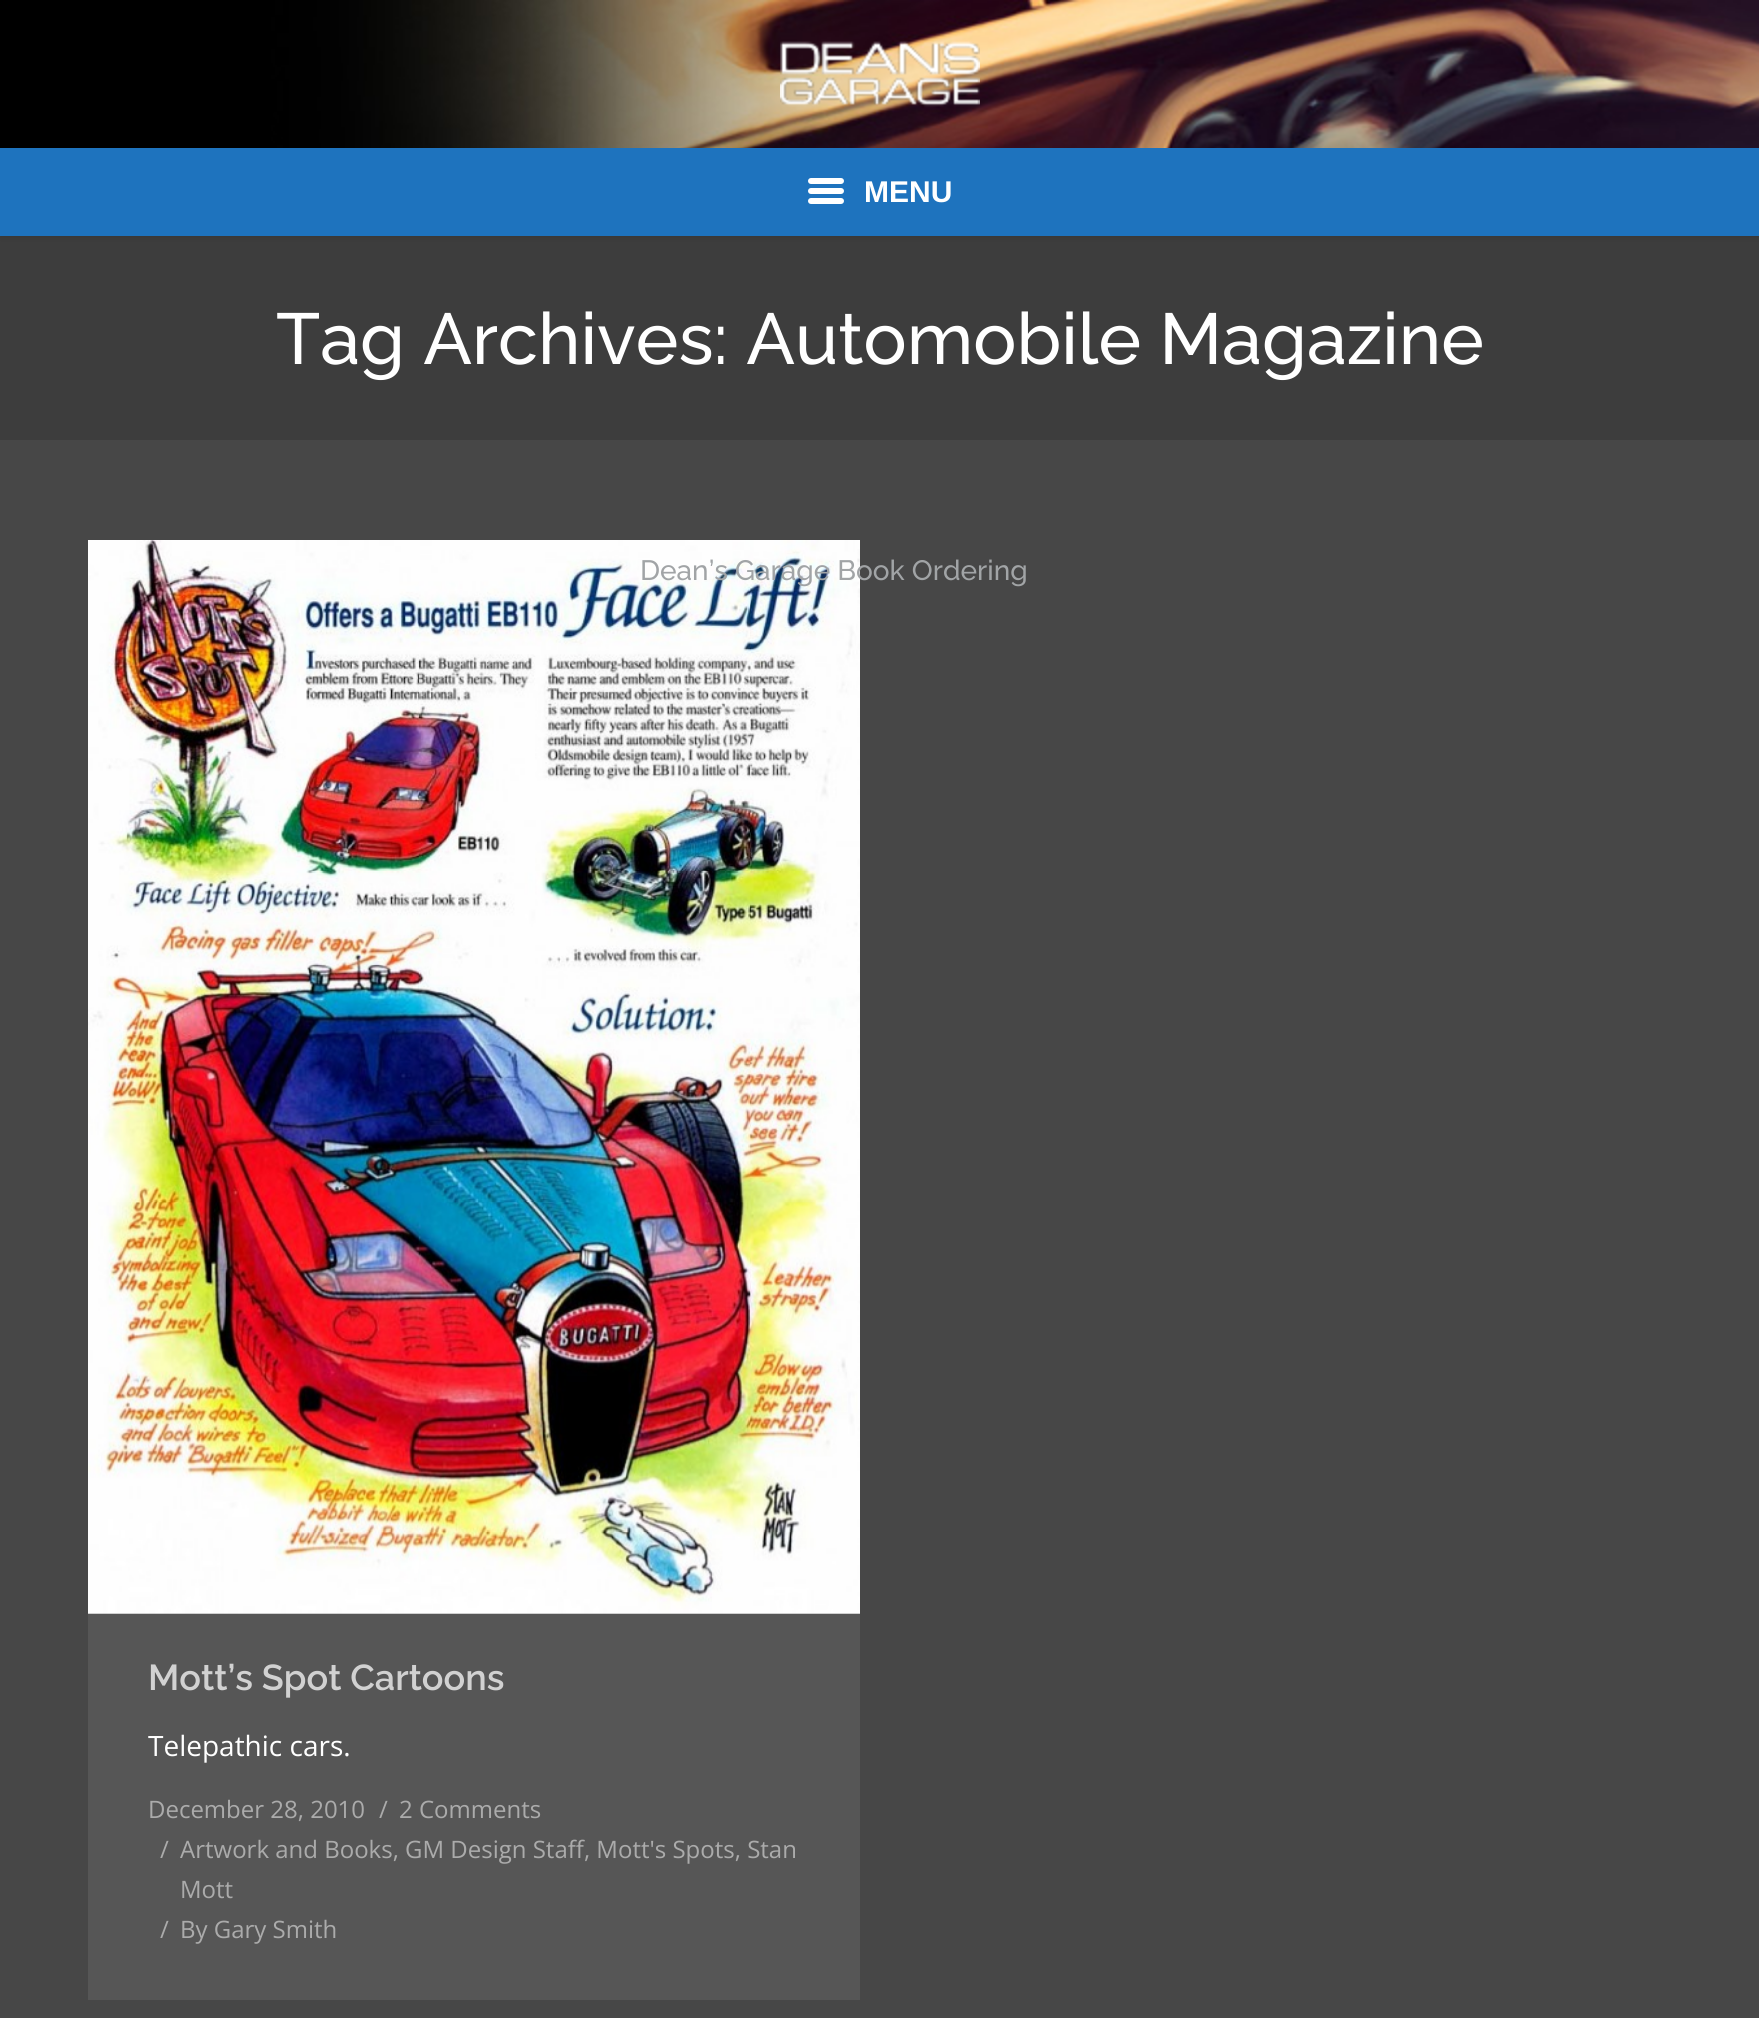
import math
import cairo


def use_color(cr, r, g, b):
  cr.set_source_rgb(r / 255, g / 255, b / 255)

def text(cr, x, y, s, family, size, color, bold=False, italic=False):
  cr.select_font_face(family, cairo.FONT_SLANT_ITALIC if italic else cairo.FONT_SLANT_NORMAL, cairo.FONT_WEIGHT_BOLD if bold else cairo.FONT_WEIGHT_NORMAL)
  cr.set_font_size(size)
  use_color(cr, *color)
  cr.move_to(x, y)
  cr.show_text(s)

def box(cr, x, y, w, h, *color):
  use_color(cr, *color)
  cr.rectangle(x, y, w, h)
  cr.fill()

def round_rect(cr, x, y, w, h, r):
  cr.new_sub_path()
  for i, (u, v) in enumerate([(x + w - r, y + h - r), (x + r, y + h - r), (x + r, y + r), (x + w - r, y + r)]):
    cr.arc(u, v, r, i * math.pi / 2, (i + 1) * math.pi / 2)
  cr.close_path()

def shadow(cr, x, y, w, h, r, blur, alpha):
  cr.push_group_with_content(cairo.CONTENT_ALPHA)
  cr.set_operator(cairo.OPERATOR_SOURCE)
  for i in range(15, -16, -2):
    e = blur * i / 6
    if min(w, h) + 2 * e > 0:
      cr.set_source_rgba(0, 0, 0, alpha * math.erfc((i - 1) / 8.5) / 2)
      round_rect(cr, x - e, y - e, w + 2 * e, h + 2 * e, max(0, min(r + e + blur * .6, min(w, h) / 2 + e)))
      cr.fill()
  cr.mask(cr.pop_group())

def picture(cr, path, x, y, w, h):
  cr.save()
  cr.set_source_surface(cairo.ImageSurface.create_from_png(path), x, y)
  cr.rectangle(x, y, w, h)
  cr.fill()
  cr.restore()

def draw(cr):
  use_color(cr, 71, 71, 71)
  cr.paint()
  box(cr, 0, 236, 1759, 204, 61, 61, 61)
  use_color(cr, 0, 0, 0)
  shadow(cr, 0, 0, 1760, 236, 0, 4, 0.15)
  picture(cr, "img_01.png", 0, 0, 1759, 148)
  picture(cr, "img_02.png", 780, 41, 200, 66)
  box(cr, 0, 148, 1759, 88, 30, 115, 190)
  use_color(cr, 255, 255, 255)
  round_rect(cr, 808, 188, 36, 6, 3)
  cr.fill()
  round_rect(cr, 808, 178, 36, 6, 3)
  cr.fill()
  round_rect(cr, 808, 198, 36, 6, 3)
  cr.fill()
  box(cr, 88, 1613, 772, 387, 86, 86, 86)
  picture(cr, "img_03.png", 88, 540, 772, 1074)
  text(cr, 864, 202, "MENU", "Liberation Sans", 30, (255, 255, 255), bold=True)
  text(cr, 640, 580, "Dean’s Garage Book Ordering", "Raleway Medium", 28, (161, 164, 166))
  text(cr, 276, 364, "Tag Archives: Automobile Magazine", "Raleway Medium", 72, (255, 255, 255))
  text(cr, 148, 1690, "Mott’s Spot Cartoons", "Raleway SemiBold", 36, (209, 209, 209))
  text(cr, 148, 1756, "Telepathic cars.", "Open Sans", 28, (255, 255, 255))
  text(cr, 148, 1818, "December 28, 2010", "Open Sans", 24, (171, 171, 171))
  text(cr, 379, 1818, "/", "Open Sans", 24, (171, 171, 171))
  text(cr, 399, 1818, "2 Comments", "Open Sans", 24, (171, 171, 171))
  text(cr, 160, 1858, "/", "Open Sans", 24, (171, 171, 171))
  text(cr, 180, 1858, "Artwork and Books, GM Design Staff, Mott's Spots, Stan", "Open Sans", 24, (171, 171, 171))
  text(cr, 180, 1898, "Mott", "Open Sans", 24, (171, 171, 171))
  text(cr, 160, 1938, "/", "Open Sans", 24, (171, 171, 171))
  text(cr, 180, 1938, "By Gary Smith", "Open Sans", 24, (171, 171, 171))


surface = cairo.ImageSurface(cairo.FORMAT_RGB24, 1759, 2018)
cr = cairo.Context(surface)
options = cairo.FontOptions()
options.set_hint_metrics(cairo.HINT_METRICS_OFF)
options.set_hint_style(cairo.HINT_STYLE_NONE)
cr.set_font_options(options)
cr.set_miter_limit(4)
draw(cr)
surface.write_to_png("out.png")
